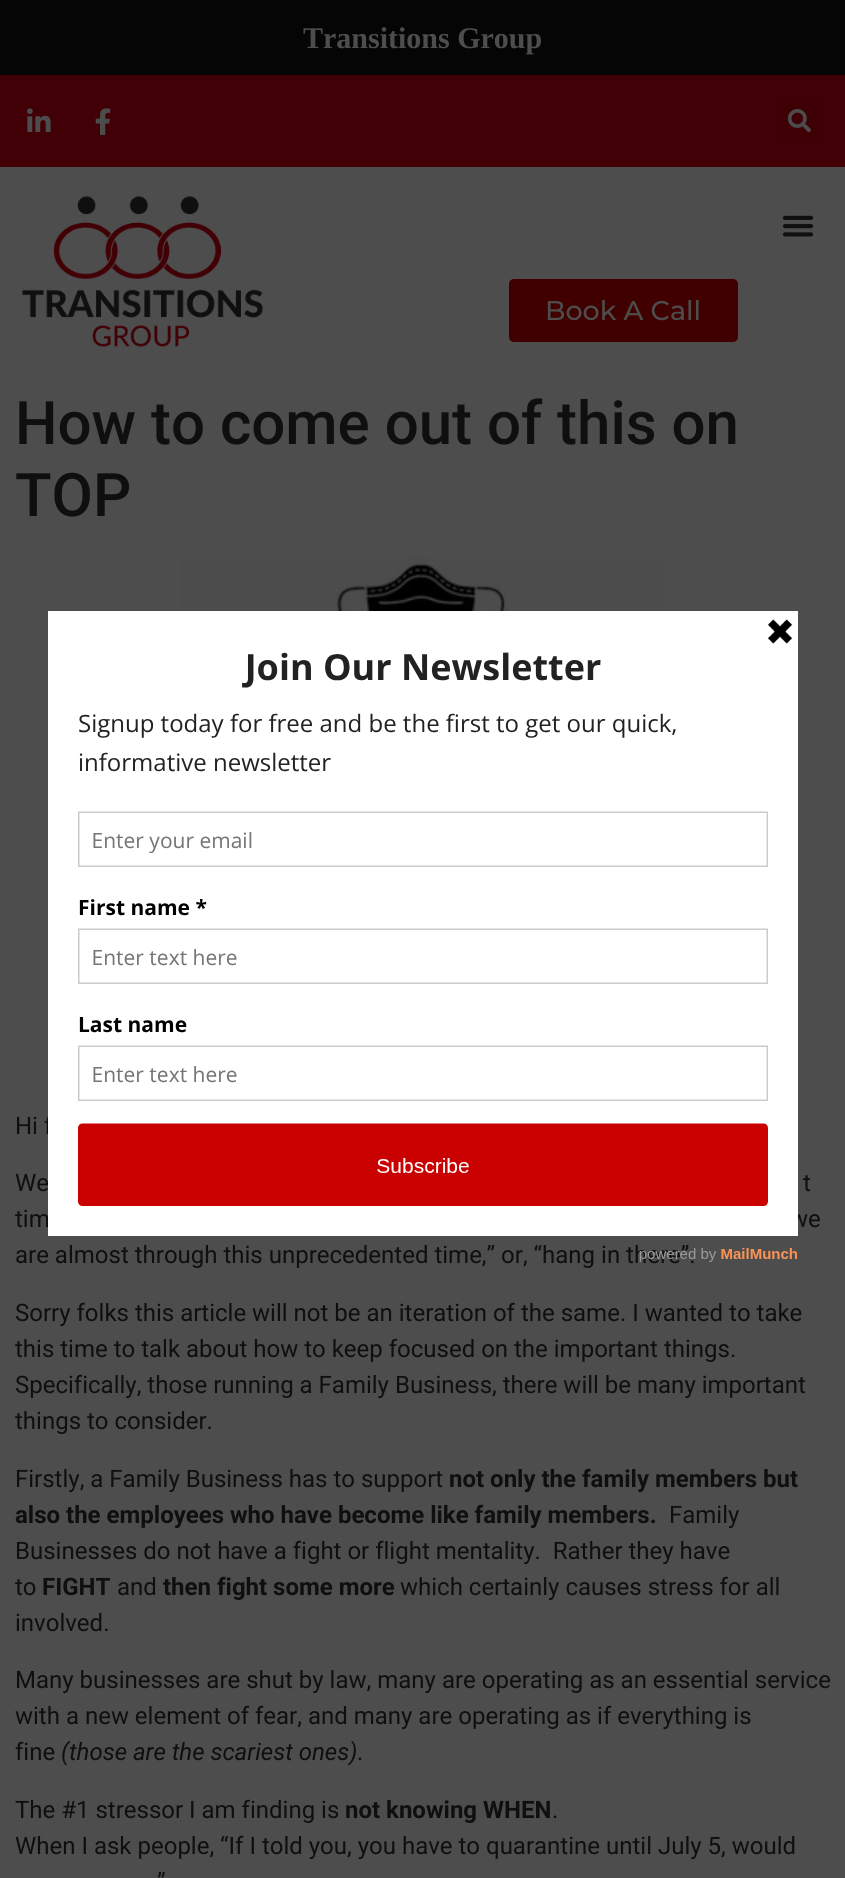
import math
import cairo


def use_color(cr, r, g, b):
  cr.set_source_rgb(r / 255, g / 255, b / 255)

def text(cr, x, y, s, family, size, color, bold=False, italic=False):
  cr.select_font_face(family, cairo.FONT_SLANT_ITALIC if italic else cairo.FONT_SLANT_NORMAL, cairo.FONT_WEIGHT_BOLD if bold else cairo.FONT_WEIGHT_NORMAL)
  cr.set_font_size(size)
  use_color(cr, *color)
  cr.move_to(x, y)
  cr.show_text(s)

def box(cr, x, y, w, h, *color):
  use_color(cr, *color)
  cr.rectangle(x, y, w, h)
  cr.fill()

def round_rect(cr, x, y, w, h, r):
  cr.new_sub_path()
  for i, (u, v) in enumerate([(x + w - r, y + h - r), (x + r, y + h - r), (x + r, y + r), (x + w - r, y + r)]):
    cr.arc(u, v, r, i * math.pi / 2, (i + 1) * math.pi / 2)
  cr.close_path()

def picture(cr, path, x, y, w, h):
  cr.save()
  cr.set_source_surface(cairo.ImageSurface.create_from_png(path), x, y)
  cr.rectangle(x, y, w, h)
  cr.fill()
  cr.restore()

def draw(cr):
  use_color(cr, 77, 77, 77)
  cr.paint()
  box(cr, 0, 0, 845, 75, 5, 5, 5)
  box(cr, 0, 75, 845, 92, 65, 0, 5)
  picture(cr, "img_01.png", 27, 108, 24, 24)
  picture(cr, "img_02.png", 95, 108, 16, 27)
  use_color(cr, 62, 0, 5)
  round_rect(cr, 777, 98, 47, 46, 5)
  cr.fill()
  picture(cr, "img_03.png", 787, 109, 25, 24)
  picture(cr, "img_04.png", 22, 196, 241, 151)
  picture(cr, "img_05.png", 782, 215, 32, 22)
  use_color(cr, 65, 0, 0)
  round_rect(cr, 509, 279, 229, 63, 5)
  cr.fill()
  picture(cr, "img_06.png", 180, 556, 485, 55)
  text(cr, 303, 48, "Transitions Group", "Liberation Serif", 30, (77, 77, 77), bold=True)
  text(cr, 545, 320, "Book A Call", "Montserrat Medium", 27, (77, 77, 77))
  text(cr, 15, 444, "How to come out of this on", "Roboto Medium", 60, (15, 15, 15))
  text(cr, 15, 516, "TOP", "Roboto Medium", 60, (15, 15, 15))
  text(cr, 15, 1134, "Hi f", "Roboto", 24, (15, 15, 15))
  text(cr, 15, 1191, "We", "Roboto", 24, (15, 15, 15))
  text(cr, 803, 1191, "t", "Roboto", 24, (15, 15, 15))
  text(cr, 15, 1227, "tim", "Roboto", 24, (15, 15, 15))
  text(cr, 790, 1227, "we", "Roboto", 24, (15, 15, 15))
  text(cr, 15, 1263, "are almost through this unprecedented time,” or, “hang in there”.", "Roboto", 24, (15, 15, 15))
  text(cr, 15, 1321, "Sorry folks this article will not be an iteration of the same. I wanted to take", "Roboto", 24, (15, 15, 15))
  text(cr, 15, 1357, "this time to talk about how to keep focused on the important things.", "Roboto", 24, (15, 15, 15))
  text(cr, 15, 1393, "Specifically, those running a Family Business, there will be many important", "Roboto", 24, (15, 15, 15))
  text(cr, 15, 1429, "things to consider.", "Roboto", 24, (15, 15, 15))
  text(cr, 15, 1487, "Firstly, a Family Business has to support", "Roboto", 24, (15, 15, 15))
  text(cr, 449, 1487, "not only the family members but", "Roboto", 24, (15, 15, 15), bold=True)
  text(cr, 15, 1523, "also the employees who have become like family members.", "Roboto", 24, (15, 15, 15), bold=True)
  text(cr, 669, 1523, "Family", "Roboto", 24, (15, 15, 15))
  text(cr, 15, 1559, "Businesses do not have a fight or flight mentality.  Rather they have", "Roboto", 24, (15, 15, 15))
  text(cr, 15, 1595, "to", "Roboto", 24, (15, 15, 15))
  text(cr, 42, 1595, "FIGHT", "Roboto", 24, (15, 15, 15), bold=True)
  text(cr, 117, 1595, "and", "Roboto", 24, (15, 15, 15))
  text(cr, 163, 1595, "then fight some more", "Roboto", 24, (15, 15, 15), bold=True)
  text(cr, 400, 1595, "which certainly causes stress for all", "Roboto", 24, (15, 15, 15))
  text(cr, 15, 1631, "involved.", "Roboto", 24, (15, 15, 15))
  text(cr, 15, 1688, "Many businesses are shut by law, many are operating as an essential service", "Roboto", 24, (15, 15, 15))
  text(cr, 15, 1724, "with a new element of fear, and many are operating as if everything is", "Roboto", 24, (15, 15, 15))
  text(cr, 15, 1760, "fine", "Roboto", 24, (15, 15, 15))
  text(cr, 61, 1760, "(those are the scariest ones)", "Roboto", 24, (15, 15, 15), italic=True)
  text(cr, 357, 1760, ".", "Roboto", 24, (15, 15, 15))
  text(cr, 15, 1818, "The #1 stressor I am finding is", "Roboto", 24, (15, 15, 15))
  text(cr, 345, 1818, "not knowing WHEN", "Roboto", 24, (15, 15, 15), bold=True)
  text(cr, 552, 1818, ".", "Roboto", 24, (15, 15, 15))
  text(cr, 15, 1854, "When I ask people, “If I told you, you have to quarantine until July 5, would", "Roboto", 24, (15, 15, 15))
  text(cr, 157, 1890, "”", "Roboto", 24, (15, 15, 15))
  picture(cr, "img_07.png", 48, 611, 750, 651)


surface = cairo.ImageSurface(cairo.FORMAT_RGB24, 845, 1878)
cr = cairo.Context(surface)
options = cairo.FontOptions()
options.set_hint_metrics(cairo.HINT_METRICS_OFF)
options.set_hint_style(cairo.HINT_STYLE_NONE)
cr.set_font_options(options)
cr.set_miter_limit(4)
draw(cr)
surface.write_to_png("out.png")
